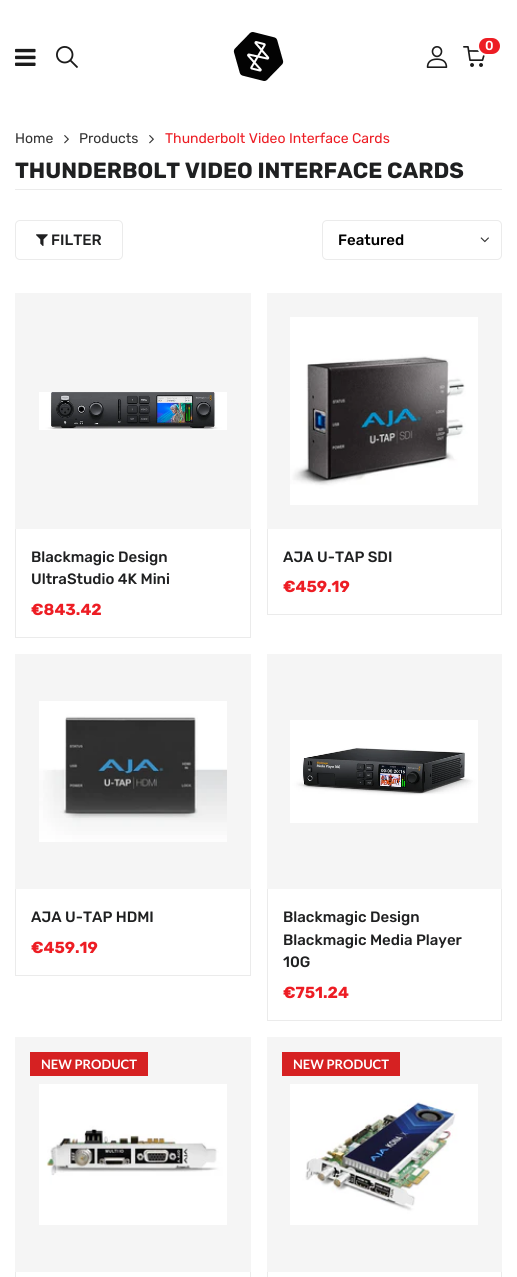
import math
import cairo


def use_color(cr, r, g, b):
  cr.set_source_rgb(r / 255, g / 255, b / 255)

def text(cr, x, y, s, family, size, color, bold=False, italic=False):
  cr.select_font_face(family, cairo.FONT_SLANT_ITALIC if italic else cairo.FONT_SLANT_NORMAL, cairo.FONT_WEIGHT_BOLD if bold else cairo.FONT_WEIGHT_NORMAL)
  cr.set_font_size(size)
  use_color(cr, *color)
  cr.move_to(x, y)
  cr.show_text(s)

def box(cr, x, y, w, h, *color):
  use_color(cr, *color)
  cr.rectangle(x, y, w, h)
  cr.fill()

def round_rect(cr, x, y, w, h, r):
  cr.new_sub_path()
  for i, (u, v) in enumerate([(x + w - r, y + h - r), (x + r, y + h - r), (x + r, y + r), (x + w - r, y + r)]):
    cr.arc(u, v, r, i * math.pi / 2, (i + 1) * math.pi / 2)
  cr.close_path()

def picture(cr, path, x, y, w, h):
  cr.save()
  cr.set_source_surface(cairo.ImageSurface.create_from_png(path), x, y)
  cr.rectangle(x, y, w, h)
  cr.fill()
  cr.restore()

def draw(cr):
  use_color(cr, 255, 255, 255)
  cr.paint()
  picture(cr, "img_01.png", 15, 48, 21, 18)
  picture(cr, "img_02.png", 56, 46, 22, 22)
  picture(cr, "img_03.png", 233, 32, 51, 49)
  picture(cr, "img_04.png", 426, 46, 22, 22)
  picture(cr, "img_05.png", 463, 46, 22, 21)
  use_color(cr, 237, 29, 36)
  round_rect(cr, 478, 37, 23, 18, 9)
  cr.fill_preserve()
  use_color(cr, 255, 255, 255)
  cr.stroke()
  box(cr, 15, 189, 487, 1, 235, 235, 235)
  picture(cr, "img_06.png", 64, 135, 5, 9)
  picture(cr, "img_06.png", 149, 135, 5, 9)
  round_rect(cr, 15.5, 220.5, 107, 39, 4.5)
  cr.set_line_width(1)
  cr.stroke()
  picture(cr, "img_07.png", 36, 234, 12, 12)
  round_rect(cr, 322.5, 220.5, 179, 39, 4.5)
  cr.stroke()
  picture(cr, "img_08.png", 480, 237, 9, 6)
  box(cr, 15, 293, 236, 236, 245, 245, 245)
  picture(cr, "img_09.png", 39, 392, 188, 38)
  box(cr, 250, 529, 1, 109, 235, 235, 235)
  box(cr, 15, 637, 236, 1, 235, 235, 235)
  box(cr, 15, 529, 1, 109, 235, 235, 235)
  box(cr, 267, 293, 235, 236, 245, 245, 245)
  picture(cr, "img_10.png", 290, 317, 188, 188)
  box(cr, 501, 529, 1, 86, 235, 235, 235)
  box(cr, 267, 614, 235, 1, 235, 235, 235)
  box(cr, 267, 529, 1, 86, 235, 235, 235)
  box(cr, 15, 654, 236, 235, 245, 245, 245)
  picture(cr, "img_11.png", 39, 701, 188, 141)
  box(cr, 250, 889, 1, 87, 235, 235, 235)
  box(cr, 15, 975, 236, 1, 235, 235, 235)
  box(cr, 15, 889, 1, 87, 235, 235, 235)
  box(cr, 267, 654, 235, 235, 245, 245, 245)
  picture(cr, "img_12.png", 290, 720, 188, 103)
  box(cr, 501, 889, 1, 132, 235, 235, 235)
  box(cr, 267, 1020, 235, 1, 235, 235, 235)
  box(cr, 267, 889, 1, 132, 235, 235, 235)
  box(cr, 15, 1037, 236, 235, 245, 245, 245)
  picture(cr, "img_13.png", 39, 1084, 188, 141)
  box(cr, 30, 1052, 118, 24, 214, 33, 34)
  box(cr, 250, 1272, 1, 5, 235, 235, 235)
  box(cr, 15, 1272, 1, 5, 235, 235, 235)
  box(cr, 267, 1037, 235, 235, 245, 245, 245)
  picture(cr, "img_14.png", 290, 1084, 188, 141)
  box(cr, 282, 1052, 118, 24, 214, 33, 34)
  box(cr, 501, 1272, 1, 5, 235, 235, 235)
  box(cr, 267, 1272, 1, 5, 235, 235, 235)
  text(cr, 485, 50, "0", "Rubik Medium", 13, (255, 255, 255))
  text(cr, 15, 143, "Home", "Rubik", 14, (51, 51, 51))
  text(cr, 79, 143, "Products", "Rubik", 14, (51, 51, 51))
  text(cr, 165, 143, "Thunderbolt Video Interface Cards", "Rubik", 14, (237, 29, 36))
  text(cr, 15, 178, "THUNDERBOLT VIDEO INTERFACE CARDS", "Rubik", 22, (31, 32, 33), bold=True)
  text(cr, 51, 245, "FILTER", "Rubik Medium", 15, (31, 32, 33))
  text(cr, 338, 245, "Featured", "Rubik Medium", 15, (0, 0, 0))
  text(cr, 31, 562, "Blackmagic Design", "Rubik Medium", 15, (31, 32, 33))
  text(cr, 31, 584, "UltraStudio 4K Mini", "Rubik Medium", 15, (31, 32, 33))
  text(cr, 31, 615, "€843.42", "Rubik", 16, (237, 29, 36), bold=True)
  text(cr, 283, 562, "AJA U-TAP SDI", "Rubik Medium", 15, (31, 32, 33))
  text(cr, 283, 592, "€459.19", "Rubik", 16, (237, 29, 36), bold=True)
  text(cr, 31, 922, "AJA U-TAP HDMI", "Rubik Medium", 15, (31, 32, 33))
  text(cr, 31, 953, "€459.19", "Rubik", 16, (237, 29, 36), bold=True)
  text(cr, 283, 922, "Blackmagic Design", "Rubik Medium", 15, (31, 32, 33))
  text(cr, 283, 945, "Blackmagic Media Player", "Rubik Medium", 15, (31, 32, 33))
  text(cr, 283, 967, "10G", "Rubik Medium", 15, (31, 32, 33))
  text(cr, 283, 998, "€751.24", "Rubik", 16, (237, 29, 36), bold=True)
  text(cr, 41, 1069, "NEW PRODUCT", "Lato", 13, (255, 255, 255), bold=True)
  text(cr, 293, 1069, "NEW PRODUCT", "Lato", 13, (255, 255, 255), bold=True)


surface = cairo.ImageSurface(cairo.FORMAT_RGB24, 517, 1277)
cr = cairo.Context(surface)
options = cairo.FontOptions()
options.set_hint_metrics(cairo.HINT_METRICS_OFF)
options.set_hint_style(cairo.HINT_STYLE_NONE)
cr.set_font_options(options)
cr.set_miter_limit(4)
draw(cr)
surface.write_to_png("out.png")
